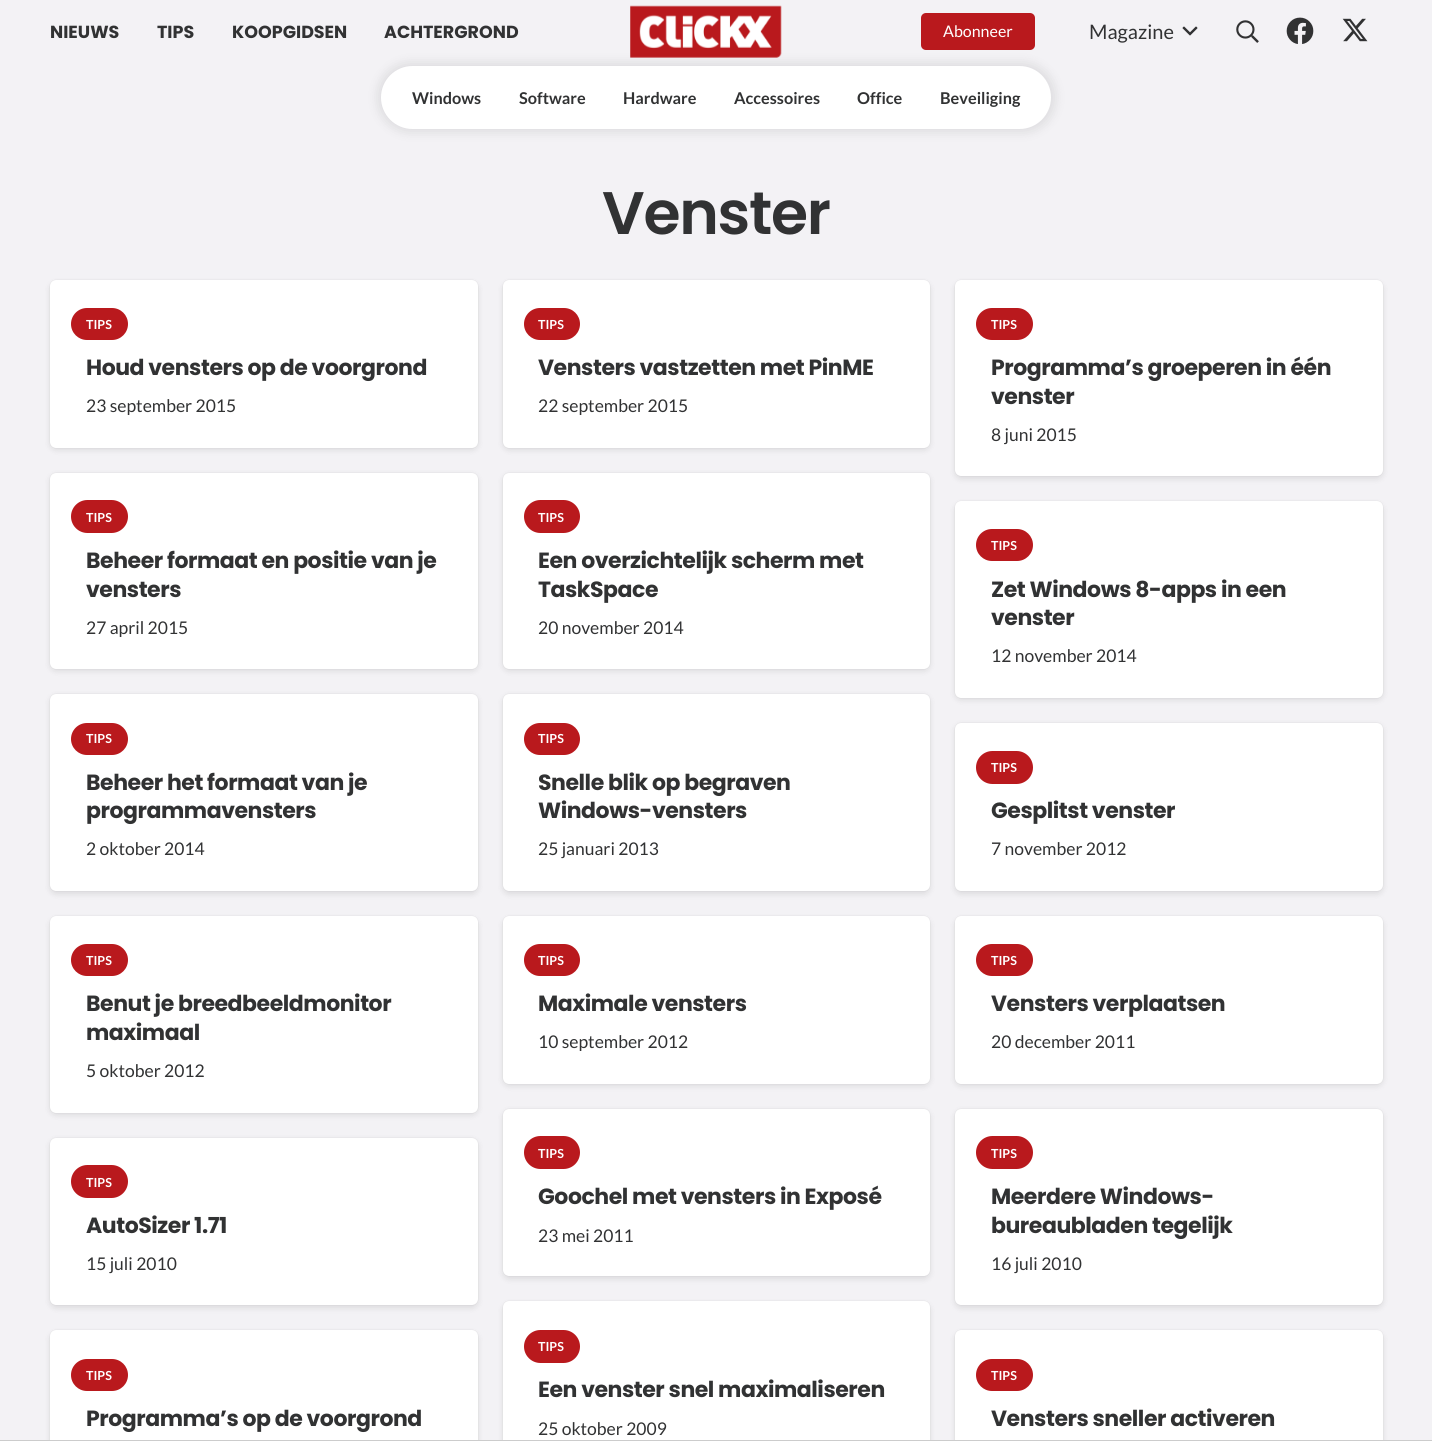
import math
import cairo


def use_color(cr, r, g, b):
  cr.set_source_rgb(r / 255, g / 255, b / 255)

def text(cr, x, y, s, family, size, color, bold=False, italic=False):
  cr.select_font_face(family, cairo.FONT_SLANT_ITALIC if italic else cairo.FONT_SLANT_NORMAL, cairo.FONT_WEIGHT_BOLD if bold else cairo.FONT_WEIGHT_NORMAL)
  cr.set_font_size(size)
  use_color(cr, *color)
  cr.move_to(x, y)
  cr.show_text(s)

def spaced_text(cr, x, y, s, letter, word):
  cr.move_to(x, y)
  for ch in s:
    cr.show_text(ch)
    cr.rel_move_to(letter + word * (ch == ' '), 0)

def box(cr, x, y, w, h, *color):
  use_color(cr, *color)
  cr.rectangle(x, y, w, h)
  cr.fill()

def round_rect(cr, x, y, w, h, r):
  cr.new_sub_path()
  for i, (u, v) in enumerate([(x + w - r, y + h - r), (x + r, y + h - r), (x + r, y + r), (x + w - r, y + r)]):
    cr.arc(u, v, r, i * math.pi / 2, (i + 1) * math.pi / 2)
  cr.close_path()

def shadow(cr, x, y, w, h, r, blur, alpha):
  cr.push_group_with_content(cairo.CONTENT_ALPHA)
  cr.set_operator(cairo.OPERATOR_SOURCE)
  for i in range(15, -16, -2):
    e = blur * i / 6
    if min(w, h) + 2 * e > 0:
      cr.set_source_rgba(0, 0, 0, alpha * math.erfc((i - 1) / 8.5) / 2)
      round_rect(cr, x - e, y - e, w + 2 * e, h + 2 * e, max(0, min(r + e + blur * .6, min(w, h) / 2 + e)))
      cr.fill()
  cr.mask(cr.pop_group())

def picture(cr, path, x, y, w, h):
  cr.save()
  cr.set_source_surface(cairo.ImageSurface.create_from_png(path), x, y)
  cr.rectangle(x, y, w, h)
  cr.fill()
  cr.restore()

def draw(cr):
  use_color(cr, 243, 242, 245)
  cr.paint()
  picture(cr, "img_01.png", 630, 5, 152, 53)
  use_color(cr, 185, 25, 29)
  round_rect(cr, 921, 13, 114, 37, 5)
  cr.fill()
  picture(cr, "img_02.png", 1182, 26, 16, 10)
  picture(cr, "img_03.png", 1236, 20, 23, 23)
  picture(cr, "img_04.png", 1286, 17, 28, 27)
  picture(cr, "img_05.png", 1342, 18, 26, 24)
  use_color(cr, 0, 0, 0)
  shadow(cr, 379, 64, 675, 67, 33.5, 6, 0.11)
  use_color(cr, 255, 255, 255)
  round_rect(cr, 381, 66, 670, 63, 31.5)
  cr.fill()
  use_color(cr, 0, 0, 0)
  shadow(cr, 50, 283, 428, 167, 6, 3, 0.1)
  shadow(cr, 50, 280, 428, 168, 6, 0.5, 0.1)
  use_color(cr, 255, 255, 255)
  round_rect(cr, 50, 280, 428, 168, 6)
  cr.fill()
  use_color(cr, 185, 25, 29)
  round_rect(cr, 71, 308, 57, 32, 16)
  cr.fill()
  use_color(cr, 0, 0, 0)
  shadow(cr, 503, 283, 427, 167, 6, 3, 0.1)
  shadow(cr, 503, 280, 427, 168, 6, 0.5, 0.1)
  use_color(cr, 255, 255, 255)
  round_rect(cr, 503, 280, 427, 168, 6)
  cr.fill()
  use_color(cr, 185, 25, 29)
  round_rect(cr, 524, 308, 56, 32, 16)
  cr.fill()
  use_color(cr, 0, 0, 0)
  shadow(cr, 955, 283, 428, 196, 6, 3, 0.1)
  shadow(cr, 955, 280, 428, 196, 6, 0.5, 0.1)
  use_color(cr, 255, 255, 255)
  round_rect(cr, 955, 280, 428, 196, 6)
  cr.fill()
  use_color(cr, 185, 25, 29)
  round_rect(cr, 976, 308, 57, 32, 16)
  cr.fill()
  use_color(cr, 0, 0, 0)
  shadow(cr, 50, 475, 428, 196, 6, 3, 0.1)
  shadow(cr, 50, 473, 428, 196, 6, 0.5, 0.1)
  use_color(cr, 255, 255, 255)
  round_rect(cr, 50, 473, 428, 196, 6)
  cr.fill()
  use_color(cr, 185, 25, 29)
  round_rect(cr, 71, 500, 57, 33, 16.5)
  cr.fill()
  use_color(cr, 0, 0, 0)
  shadow(cr, 503, 475, 427, 196, 6, 3, 0.1)
  shadow(cr, 503, 473, 427, 196, 6, 0.5, 0.1)
  use_color(cr, 255, 255, 255)
  round_rect(cr, 503, 473, 427, 196, 6)
  cr.fill()
  use_color(cr, 185, 25, 29)
  round_rect(cr, 524, 500, 56, 33, 16.5)
  cr.fill()
  use_color(cr, 0, 0, 0)
  shadow(cr, 955, 504, 428, 196, 6, 3, 0.1)
  shadow(cr, 955, 501, 428, 197, 6, 0.5, 0.1)
  use_color(cr, 255, 255, 255)
  round_rect(cr, 955, 501, 428, 197, 6)
  cr.fill()
  use_color(cr, 185, 25, 29)
  round_rect(cr, 976, 529, 57, 32, 16)
  cr.fill()
  use_color(cr, 0, 0, 0)
  shadow(cr, 50, 696, 428, 198, 6, 3, 0.1)
  shadow(cr, 50, 694, 428, 197, 6, 0.5, 0.1)
  use_color(cr, 255, 255, 255)
  round_rect(cr, 50, 694, 428, 197, 6)
  cr.fill()
  use_color(cr, 185, 25, 29)
  round_rect(cr, 71, 723, 57, 32, 16)
  cr.fill()
  use_color(cr, 0, 0, 0)
  shadow(cr, 503, 696, 427, 198, 6, 3, 0.1)
  shadow(cr, 503, 694, 427, 197, 6, 0.5, 0.1)
  use_color(cr, 255, 255, 255)
  round_rect(cr, 503, 694, 427, 197, 6)
  cr.fill()
  use_color(cr, 185, 25, 29)
  round_rect(cr, 524, 723, 56, 32, 16)
  cr.fill()
  use_color(cr, 0, 0, 0)
  shadow(cr, 955, 725, 428, 169, 6, 3, 0.1)
  shadow(cr, 955, 723, 428, 168, 6, 0.5, 0.1)
  use_color(cr, 255, 255, 255)
  round_rect(cr, 955, 723, 428, 168, 6)
  cr.fill()
  use_color(cr, 185, 25, 29)
  round_rect(cr, 976, 751, 57, 33, 16.5)
  cr.fill()
  use_color(cr, 0, 0, 0)
  shadow(cr, 50, 919, 428, 196, 6, 3, 0.1)
  shadow(cr, 50, 916, 428, 197, 6, 0.5, 0.1)
  use_color(cr, 255, 255, 255)
  round_rect(cr, 50, 916, 428, 197, 6)
  cr.fill()
  use_color(cr, 185, 25, 29)
  round_rect(cr, 71, 944, 57, 32, 16)
  cr.fill()
  use_color(cr, 0, 0, 0)
  shadow(cr, 503, 919, 427, 167, 6, 3, 0.1)
  shadow(cr, 503, 916, 427, 168, 6, 0.5, 0.1)
  use_color(cr, 255, 255, 255)
  round_rect(cr, 503, 916, 427, 168, 6)
  cr.fill()
  use_color(cr, 185, 25, 29)
  round_rect(cr, 524, 944, 56, 32, 16)
  cr.fill()
  use_color(cr, 0, 0, 0)
  shadow(cr, 955, 919, 428, 167, 6, 3, 0.1)
  shadow(cr, 955, 916, 428, 168, 6, 0.5, 0.1)
  use_color(cr, 255, 255, 255)
  round_rect(cr, 955, 916, 428, 168, 6)
  cr.fill()
  use_color(cr, 185, 25, 29)
  round_rect(cr, 976, 944, 57, 32, 16)
  cr.fill()
  use_color(cr, 0, 0, 0)
  shadow(cr, 50, 1140, 428, 168, 6, 3, 0.1)
  shadow(cr, 50, 1138, 428, 167, 6, 0.5, 0.1)
  use_color(cr, 255, 255, 255)
  round_rect(cr, 50, 1138, 428, 167, 6)
  cr.fill()
  use_color(cr, 185, 25, 29)
  round_rect(cr, 71, 1165, 57, 33, 16.5)
  cr.fill()
  use_color(cr, 0, 0, 0)
  shadow(cr, 503, 1111, 427, 168, 6, 3, 0.1)
  shadow(cr, 503, 1109, 427, 167, 6, 0.5, 0.1)
  use_color(cr, 255, 255, 255)
  round_rect(cr, 503, 1109, 427, 167, 6)
  cr.fill()
  use_color(cr, 185, 25, 29)
  round_rect(cr, 524, 1136, 56, 33, 16.5)
  cr.fill()
  use_color(cr, 0, 0, 0)
  shadow(cr, 955, 1111, 428, 197, 6, 3, 0.1)
  shadow(cr, 955, 1109, 428, 196, 6, 0.5, 0.1)
  use_color(cr, 255, 255, 255)
  round_rect(cr, 955, 1109, 428, 196, 6)
  cr.fill()
  use_color(cr, 185, 25, 29)
  round_rect(cr, 976, 1136, 57, 33, 16.5)
  cr.fill()
  use_color(cr, 0, 0, 0)
  shadow(cr, 50, 1333, 428, 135, 6, 3, 0.1)
  shadow(cr, 50, 1330, 428, 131, 6, 0.5, 0.1)
  use_color(cr, 255, 255, 255)
  round_rect(cr, 50, 1330, 428, 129, 6)
  cr.fill()
  use_color(cr, 185, 25, 29)
  round_rect(cr, 71, 1359, 57, 32, 16)
  cr.fill()
  use_color(cr, 0, 0, 0)
  shadow(cr, 503, 1304, 427, 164, 6, 3, 0.1)
  shadow(cr, 503, 1301, 427, 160, 6, 0.5, 0.1)
  use_color(cr, 255, 255, 255)
  round_rect(cr, 503, 1301, 427, 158, 6)
  cr.fill()
  use_color(cr, 185, 25, 29)
  round_rect(cr, 524, 1330, 56, 33, 16.5)
  cr.fill()
  use_color(cr, 0, 0, 0)
  shadow(cr, 955, 1333, 428, 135, 6, 3, 0.1)
  shadow(cr, 955, 1330, 428, 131, 6, 0.5, 0.1)
  use_color(cr, 255, 255, 255)
  round_rect(cr, 955, 1330, 428, 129, 6)
  cr.fill()
  use_color(cr, 185, 25, 29)
  round_rect(cr, 976, 1359, 57, 32, 16)
  cr.fill()
  box(cr, 0, 1441, 1432, 12, 255, 255, 255)
  box(cr, 0, 1440, 1432, 1, 204, 204, 204)
  text(cr, 50, 38, "NIEUWS", "Poppins", 17.5, (49, 50, 51), bold=True)
  text(cr, 157, 38, "TIPS", "Poppins", 17.5, (49, 50, 51), bold=True)
  text(cr, 232, 38, "KOOPGIDSEN", "Poppins", 17.5, (49, 50, 51), bold=True)
  text(cr, 384, 38, "ACHTERGROND", "Poppins", 17.5, (49, 50, 51), bold=True)
  text(cr, 943, 37, "Abonneer", "Lato", 16, (255, 255, 255))
  text(cr, 1089, 39, "Magazine", "Lato", 20, (49, 50, 51))
  text(cr, 412, 104, "Windows", "Lato", 16.25, (49, 50, 51), bold=True)
  text(cr, 519, 104, "Software", "Lato", 16.25, (49, 50, 51), bold=True)
  text(cr, 623, 104, "Hardware", "Lato", 16.25, (49, 50, 51), bold=True)
  text(cr, 734, 104, "Accessoires", "Lato", 16.25, (49, 50, 51), bold=True)
  text(cr, 857, 104, "Office", "Lato", 16.25, (49, 50, 51), bold=True)
  text(cr, 940, 104, "Beveiliging", "Lato", 16.25, (49, 50, 51), bold=True)
  cr.select_font_face("Poppins SemiBold")
  cr.set_font_size(60)
  spaced_text(cr, 602, 234, "Venster", -1.25, 0)
  text(cr, 86, 329, "TIPS", "Lato", 12.5, (255, 255, 255), bold=True)
  cr.select_font_face("Poppins", cairo.FONT_SLANT_NORMAL, cairo.FONT_WEIGHT_BOLD)
  cr.set_font_size(22)
  use_color(cr, 49, 50, 51)
  spaced_text(cr, 86, 375, "Houd vensters op de voorgrond", -0.45, 0)
  text(cr, 86, 412, "23 september 2015", "Lato", 17.5, (49, 50, 51))
  text(cr, 538, 329, "TIPS", "Lato", 12.5, (255, 255, 255), bold=True)
  cr.select_font_face("Poppins", cairo.FONT_SLANT_NORMAL, cairo.FONT_WEIGHT_BOLD)
  cr.set_font_size(22)
  use_color(cr, 49, 50, 51)
  spaced_text(cr, 538, 375, "Vensters vastzetten met PinME", -0.45, 0)
  text(cr, 538, 412, "22 september 2015", "Lato", 17.5, (49, 50, 51))
  text(cr, 991, 329, "TIPS", "Lato", 12.5, (255, 255, 255), bold=True)
  cr.select_font_face("Poppins", cairo.FONT_SLANT_NORMAL, cairo.FONT_WEIGHT_BOLD)
  cr.set_font_size(22)
  use_color(cr, 49, 50, 51)
  spaced_text(cr, 991, 375, "Programma’s groeperen in één", -0.45, 0)
  spaced_text(cr, 991, 404, "venster", -0.45, 0)
  text(cr, 991, 441, "8 juni 2015", "Lato", 17.5, (49, 50, 51))
  text(cr, 86, 522, "TIPS", "Lato", 12.5, (255, 255, 255), bold=True)
  cr.select_font_face("Poppins", cairo.FONT_SLANT_NORMAL, cairo.FONT_WEIGHT_BOLD)
  cr.set_font_size(22)
  use_color(cr, 49, 50, 51)
  spaced_text(cr, 86, 568, "Beheer formaat en positie van je", -0.45, 0)
  spaced_text(cr, 86, 597, "vensters", -0.45, 0)
  text(cr, 86, 634, "27 april 2015", "Lato", 17.5, (49, 50, 51))
  text(cr, 538, 522, "TIPS", "Lato", 12.5, (255, 255, 255), bold=True)
  cr.select_font_face("Poppins", cairo.FONT_SLANT_NORMAL, cairo.FONT_WEIGHT_BOLD)
  cr.set_font_size(22)
  use_color(cr, 49, 50, 51)
  spaced_text(cr, 538, 568, "Een overzichtelijk scherm met", -0.45, 0)
  spaced_text(cr, 538, 597, "TaskSpace", -0.45, 0)
  text(cr, 538, 634, "20 november 2014", "Lato", 17.5, (49, 50, 51))
  text(cr, 991, 550, "TIPS", "Lato", 12.5, (255, 255, 255), bold=True)
  cr.select_font_face("Poppins", cairo.FONT_SLANT_NORMAL, cairo.FONT_WEIGHT_BOLD)
  cr.set_font_size(22)
  use_color(cr, 49, 50, 51)
  spaced_text(cr, 991, 597, "Zet Windows 8-apps in een", -0.45, 0)
  spaced_text(cr, 991, 625, "venster", -0.45, 0)
  text(cr, 991, 662, "12 november 2014", "Lato", 17.5, (49, 50, 51))
  text(cr, 86, 743, "TIPS", "Lato", 12.5, (255, 255, 255), bold=True)
  cr.select_font_face("Poppins", cairo.FONT_SLANT_NORMAL, cairo.FONT_WEIGHT_BOLD)
  cr.set_font_size(22)
  use_color(cr, 49, 50, 51)
  spaced_text(cr, 86, 790, "Beheer het formaat van je", -0.45, 0)
  spaced_text(cr, 86, 818, "programmavensters", -0.45, 0)
  text(cr, 86, 855, "2 oktober 2014", "Lato", 17.5, (49, 50, 51))
  text(cr, 538, 743, "TIPS", "Lato", 12.5, (255, 255, 255), bold=True)
  cr.select_font_face("Poppins", cairo.FONT_SLANT_NORMAL, cairo.FONT_WEIGHT_BOLD)
  cr.set_font_size(22)
  use_color(cr, 49, 50, 51)
  spaced_text(cr, 538, 790, "Snelle blik op begraven", -0.45, 0)
  spaced_text(cr, 538, 818, "Windows-vensters", -0.45, 0)
  text(cr, 538, 855, "25 januari 2013", "Lato", 17.5, (49, 50, 51))
  text(cr, 991, 772, "TIPS", "Lato", 12.5, (255, 255, 255), bold=True)
  cr.select_font_face("Poppins", cairo.FONT_SLANT_NORMAL, cairo.FONT_WEIGHT_BOLD)
  cr.set_font_size(22)
  use_color(cr, 49, 50, 51)
  spaced_text(cr, 991, 818, "Gesplitst venster", -0.45, 0)
  text(cr, 991, 855, "7 november 2012", "Lato", 17.5, (49, 50, 51))
  text(cr, 86, 965, "TIPS", "Lato", 12.5, (255, 255, 255), bold=True)
  cr.select_font_face("Poppins", cairo.FONT_SLANT_NORMAL, cairo.FONT_WEIGHT_BOLD)
  cr.set_font_size(22)
  use_color(cr, 49, 50, 51)
  spaced_text(cr, 86, 1011, "Benut je breedbeeldmonitor", -0.45, 0)
  spaced_text(cr, 86, 1040, "maximaal", -0.45, 0)
  text(cr, 86, 1077, "5 oktober 2012", "Lato", 17.5, (49, 50, 51))
  text(cr, 538, 965, "TIPS", "Lato", 12.5, (255, 255, 255), bold=True)
  cr.select_font_face("Poppins", cairo.FONT_SLANT_NORMAL, cairo.FONT_WEIGHT_BOLD)
  cr.set_font_size(22)
  use_color(cr, 49, 50, 51)
  spaced_text(cr, 538, 1011, "Maximale vensters", -0.45, 0)
  text(cr, 538, 1048, "10 september 2012", "Lato", 17.5, (49, 50, 51))
  text(cr, 991, 965, "TIPS", "Lato", 12.5, (255, 255, 255), bold=True)
  cr.select_font_face("Poppins", cairo.FONT_SLANT_NORMAL, cairo.FONT_WEIGHT_BOLD)
  cr.set_font_size(22)
  use_color(cr, 49, 50, 51)
  spaced_text(cr, 991, 1011, "Vensters verplaatsen", -0.45, 0)
  text(cr, 991, 1048, "20 december 2011", "Lato", 17.5, (49, 50, 51))
  text(cr, 86, 1187, "TIPS", "Lato", 12.5, (255, 255, 255), bold=True)
  cr.select_font_face("Poppins", cairo.FONT_SLANT_NORMAL, cairo.FONT_WEIGHT_BOLD)
  cr.set_font_size(22)
  use_color(cr, 49, 50, 51)
  spaced_text(cr, 86, 1233, "AutoSizer 1.71", -0.45, 0)
  text(cr, 86, 1270, "15 juli 2010", "Lato", 17.5, (49, 50, 51))
  text(cr, 538, 1158, "TIPS", "Lato", 12.5, (255, 255, 255), bold=True)
  cr.select_font_face("Poppins", cairo.FONT_SLANT_NORMAL, cairo.FONT_WEIGHT_BOLD)
  cr.set_font_size(22)
  use_color(cr, 49, 50, 51)
  spaced_text(cr, 538, 1204, "Goochel met vensters in Exposé", -0.45, 0)
  text(cr, 538, 1242, "23 mei 2011", "Lato", 17.5, (49, 50, 51))
  text(cr, 991, 1158, "TIPS", "Lato", 12.5, (255, 255, 255), bold=True)
  cr.select_font_face("Poppins", cairo.FONT_SLANT_NORMAL, cairo.FONT_WEIGHT_BOLD)
  cr.set_font_size(22)
  use_color(cr, 49, 50, 51)
  spaced_text(cr, 991, 1204, "Meerdere Windows-", -0.45, 0)
  spaced_text(cr, 991, 1233, "bureaubladen tegelijk", -0.45, 0)
  text(cr, 991, 1270, "16 juli 2010", "Lato", 17.5, (49, 50, 51))
  text(cr, 86, 1380, "TIPS", "Lato", 12.5, (255, 255, 255), bold=True)
  cr.select_font_face("Poppins", cairo.FONT_SLANT_NORMAL, cairo.FONT_WEIGHT_BOLD)
  cr.set_font_size(22)
  use_color(cr, 49, 50, 51)
  spaced_text(cr, 86, 1426, "Programma’s op de voorgrond", -0.45, 0)
  text(cr, 538, 1351, "TIPS", "Lato", 12.5, (255, 255, 255), bold=True)
  cr.select_font_face("Poppins", cairo.FONT_SLANT_NORMAL, cairo.FONT_WEIGHT_BOLD)
  cr.set_font_size(22)
  use_color(cr, 49, 50, 51)
  spaced_text(cr, 538, 1397, "Een venster snel maximaliseren", -0.45, 0)
  text(cr, 538, 1435, "25 oktober 2009", "Lato", 17.5, (49, 50, 51))
  text(cr, 991, 1380, "TIPS", "Lato", 12.5, (255, 255, 255), bold=True)
  cr.select_font_face("Poppins", cairo.FONT_SLANT_NORMAL, cairo.FONT_WEIGHT_BOLD)
  cr.set_font_size(22)
  use_color(cr, 49, 50, 51)
  spaced_text(cr, 991, 1426, "Vensters sneller activeren", -0.45, 0)


surface = cairo.ImageSurface(cairo.FORMAT_RGB24, 1432, 1453)
cr = cairo.Context(surface)
options = cairo.FontOptions()
options.set_hint_metrics(cairo.HINT_METRICS_OFF)
options.set_hint_style(cairo.HINT_STYLE_NONE)
cr.set_font_options(options)
cr.set_miter_limit(4)
draw(cr)
surface.write_to_png("out.png")
